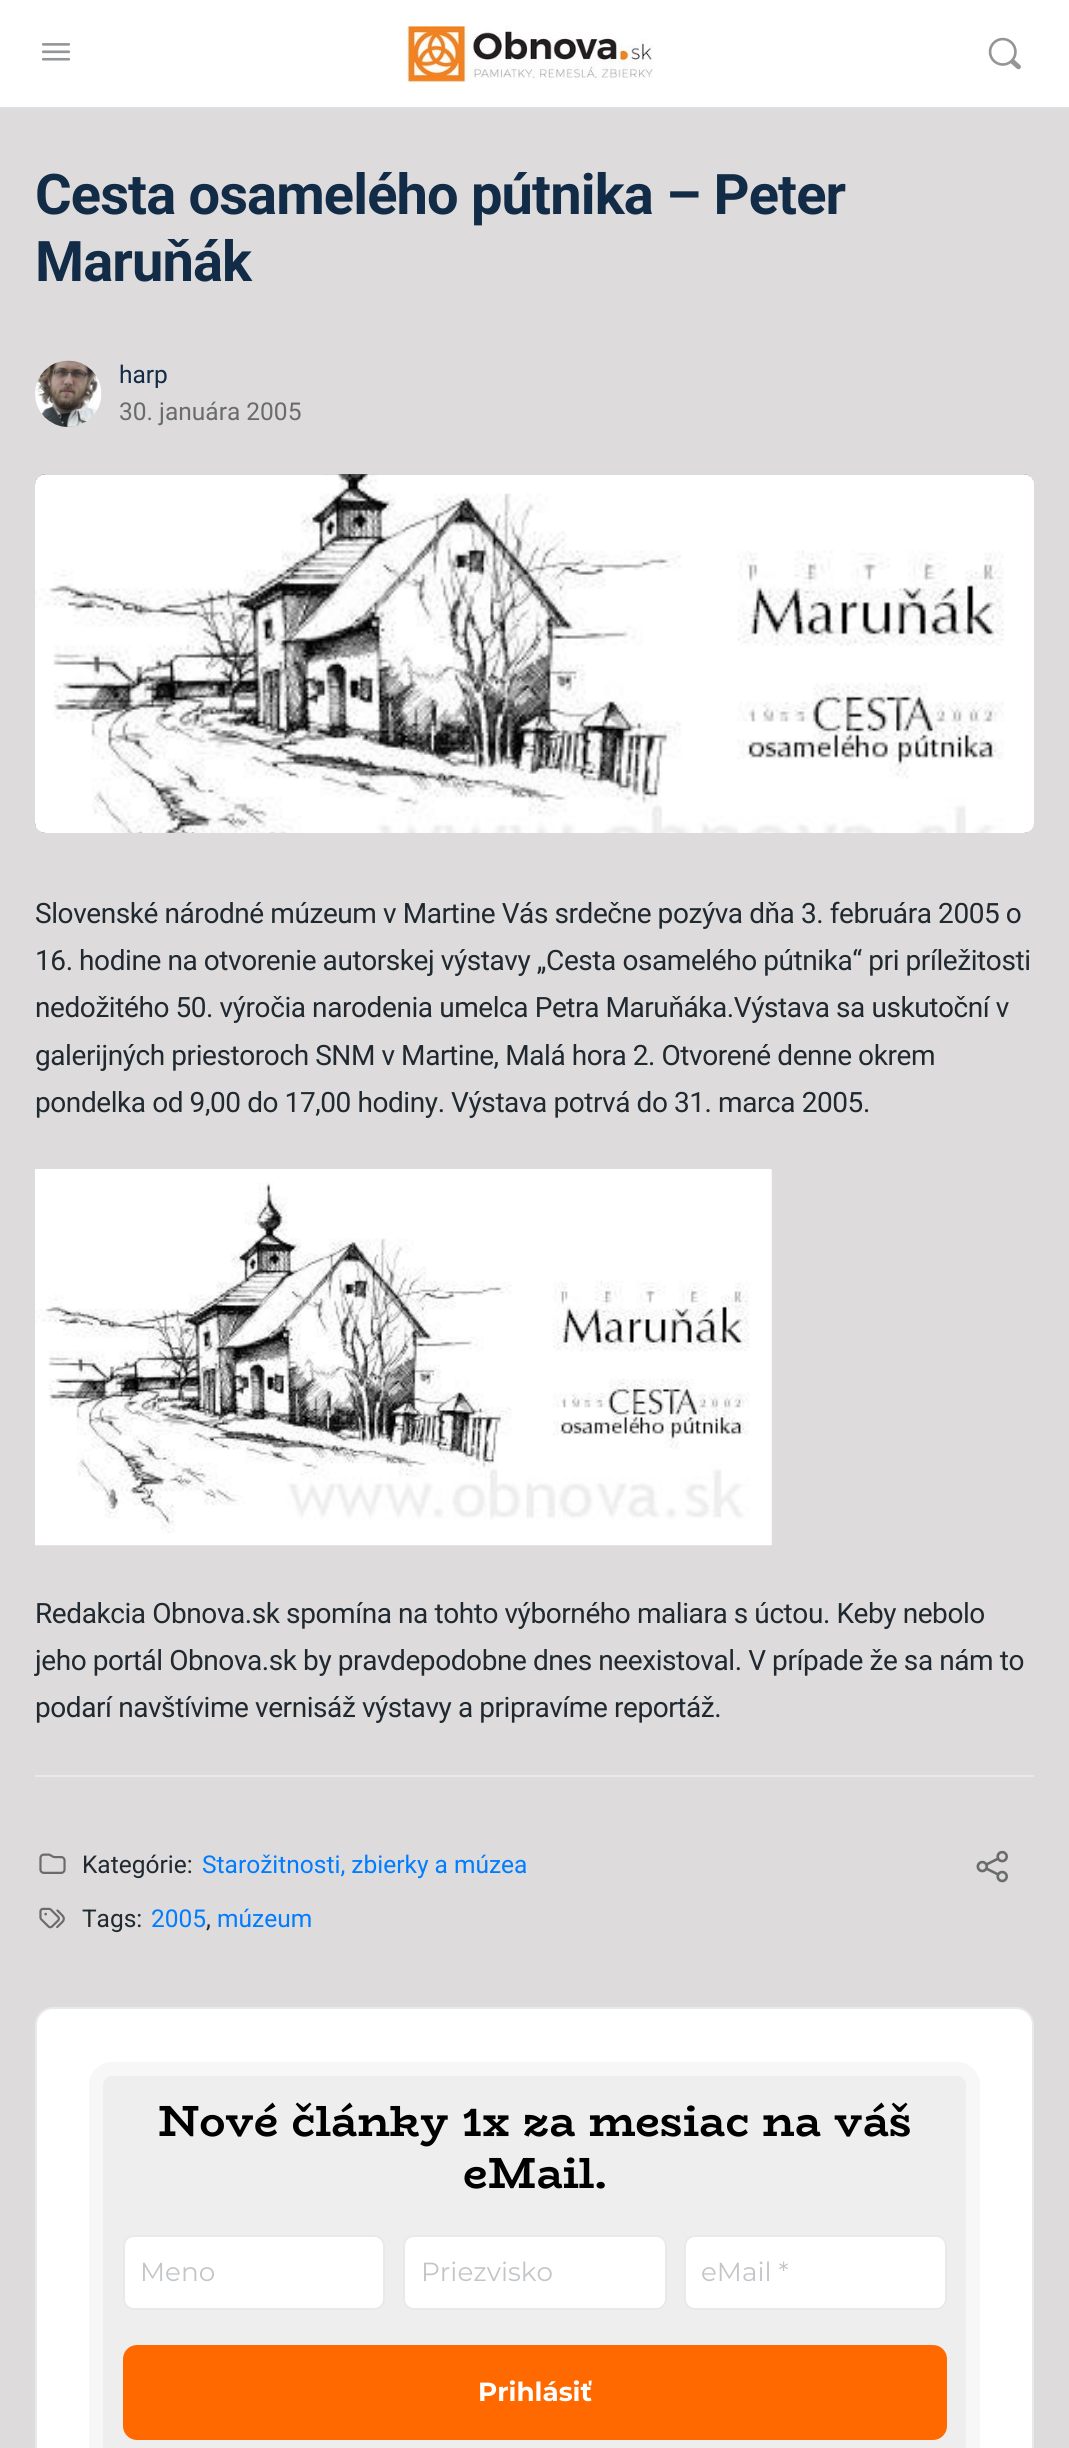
import math
import cairo


def use_color(cr, r, g, b):
  cr.set_source_rgb(r / 255, g / 255, b / 255)

def text(cr, x, y, s, family, size, color, bold=False, italic=False):
  cr.select_font_face(family, cairo.FONT_SLANT_ITALIC if italic else cairo.FONT_SLANT_NORMAL, cairo.FONT_WEIGHT_BOLD if bold else cairo.FONT_WEIGHT_NORMAL)
  cr.set_font_size(size)
  use_color(cr, *color)
  cr.move_to(x, y)
  cr.show_text(s)

def spaced_text(cr, x, y, s, letter, word):
  cr.move_to(x, y)
  for ch in s:
    cr.show_text(ch)
    cr.rel_move_to(letter + word * (ch == ' '), 0)

def box(cr, x, y, w, h, *color):
  use_color(cr, *color)
  cr.rectangle(x, y, w, h)
  cr.fill()

def round_rect(cr, x, y, w, h, r):
  cr.new_sub_path()
  for i, (u, v) in enumerate([(x + w - r, y + h - r), (x + r, y + h - r), (x + r, y + r), (x + w - r, y + r)]):
    cr.arc(u, v, r, i * math.pi / 2, (i + 1) * math.pi / 2)
  cr.close_path()

def picture(cr, path, x, y, w, h):
  cr.save()
  cr.set_source_surface(cairo.ImageSurface.create_from_png(path), x, y)
  cr.rectangle(x, y, w, h)
  cr.fill()
  cr.restore()

def draw(cr):
  use_color(cr, 221, 219, 219)
  cr.paint()
  box(cr, 0, 0, 1069, 107, 255, 255, 255)
  box(cr, 0, 107, 1069, 2, 220, 223, 227)
  picture(cr, "img_01.png", 42, 43, 28, 18)
  picture(cr, "img_02.png", 407, 26, 246, 57)
  picture(cr, "img_03.png", 988, 37, 33, 33)
  picture(cr, "img_04.png", 35, 360, 67, 67)
  use_color(cr, 96, 115, 135)
  round_rect(cr, 35, 474, 999, 359, 11)
  cr.fill()
  picture(cr, "img_05.png", 35, 474, 999, 359)
  picture(cr, "img_06.png", 35, 1169, 737, 377)
  box(cr, 35, 1775, 999, 2, 231, 233, 236)
  picture(cr, "img_07.png", 39, 1853, 27, 21)
  picture(cr, "img_08.png", 39, 1907, 26, 22)
  picture(cr, "img_09.png", 976, 1850, 32, 33)
  use_color(cr, 255, 255, 255)
  round_rect(cr, 36, 2008, 997, 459, 17)
  cr.fill_preserve()
  use_color(cr, 231, 233, 236)
  cr.stroke()
  use_color(cr, 238, 238, 238)
  round_rect(cr, 96, 2069, 877, 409, 16)
  cr.fill_preserve()
  use_color(cr, 247, 247, 247)
  cr.set_line_width(14)
  cr.stroke()
  use_color(cr, 255, 255, 255)
  round_rect(cr, 124, 2236, 260, 73, 10)
  cr.fill_preserve()
  use_color(cr, 231, 233, 236)
  cr.set_line_width(2)
  cr.stroke()
  use_color(cr, 255, 255, 255)
  round_rect(cr, 404, 2236, 262, 73, 10)
  cr.fill_preserve()
  use_color(cr, 231, 233, 236)
  cr.stroke()
  use_color(cr, 255, 255, 255)
  round_rect(cr, 685, 2236, 261, 73, 10)
  cr.fill_preserve()
  use_color(cr, 231, 233, 236)
  cr.stroke()
  use_color(cr, 255, 105, 0)
  round_rect(cr, 123, 2345, 824, 95, 14)
  cr.fill()
  cr.select_font_face("Roboto", cairo.FONT_SLANT_NORMAL, cairo.FONT_WEIGHT_BOLD)
  cr.set_font_size(56)
  use_color(cr, 18, 43, 70)
  spaced_text(cr, 35, 214, "Cesta osamelého pútnika – Peter", -0.85, 0)
  spaced_text(cr, 35, 281, "Maruňák", -0.85, 0)
  text(cr, 119, 383, "harp", "Roboto", 24.5, (18, 43, 70))
  text(cr, 119, 420, "30. januára 2005", "Roboto", 24.5, (105, 107, 109))
  cr.set_font_size(28)
  use_color(cr, 32, 41, 48)
  spaced_text(cr, 35, 923, "Slovenské národné múzeum v Martine Vás srdečne pozýva dňa 3. februára 2005 o", -0.42, 0)
  spaced_text(cr, 35, 970, "16. hodine na otvorenie autorskej výstavy „Cesta osamelého pútnika“ pri príležitosti", -0.42, 0)
  spaced_text(cr, 35, 1017, "nedožitého 50. výročia narodenia umelca Petra Maruňáka.Výstava sa uskutoční v", -0.42, 0)
  spaced_text(cr, 35, 1065, "galerijných priestoroch SNM v Martine, Malá hora 2. Otvorené denne okrem", -0.42, 0)
  spaced_text(cr, 35, 1112, "pondelka od 9,00 do 17,00 hodiny. Výstava potrvá do 31. marca 2005.", -0.42, 0)
  spaced_text(cr, 35, 1623, "Redakcia Obnova.sk spomína na tohto výborného maliara s úctou. Keby nebolo", -0.42, 0)
  spaced_text(cr, 35, 1670, "jeho portál Obnova.sk by pravdepodobne dnes neexistoval. V prípade že sa nám to", -0.42, 0)
  spaced_text(cr, 35, 1717, "podarí navštívime vernisáž výstavy a pripravíme reportáž.", -0.42, 0)
  text(cr, 82, 1873, "Kategórie:", "Roboto", 24.5, (32, 41, 48))
  text(cr, 202, 1873, "Starožitnosti, zbierky a múzea", "Roboto", 24.5, (0, 124, 255))
  text(cr, 82, 1927, "Tags:", "Roboto", 24.5, (32, 41, 48))
  text(cr, 151, 1927, "2005", "Roboto", 24.5, (0, 124, 255))
  text(cr, 206, 1927, ",", "Roboto", 24.5, (32, 41, 48))
  text(cr, 217, 1927, "múzeum", "Roboto", 24.5, (0, 124, 255))
  text(cr, 158, 2136, "Nové články 1x za mesiac na váš", "BioRhyme", 43.75, (0, 0, 0), bold=True)
  text(cr, 463, 2188, "eMail.", "BioRhyme", 43.75, (0, 0, 0), bold=True)
  text(cr, 140, 2281, "Meno", "Montserrat", 26.25, (195, 198, 201))
  text(cr, 421, 2281, "Priezvisko", "Montserrat", 26.25, (195, 198, 201))
  text(cr, 701, 2281, "eMail *", "Montserrat", 26.25, (195, 198, 201))
  text(cr, 478, 2401, "Prihlásiť", "Montserrat", 26.25, (255, 255, 255), bold=True)


surface = cairo.ImageSurface(cairo.FORMAT_RGB24, 1069, 2448)
cr = cairo.Context(surface)
options = cairo.FontOptions()
options.set_hint_metrics(cairo.HINT_METRICS_OFF)
options.set_hint_style(cairo.HINT_STYLE_NONE)
cr.set_font_options(options)
cr.set_miter_limit(4)
draw(cr)
surface.write_to_png("out.png")
